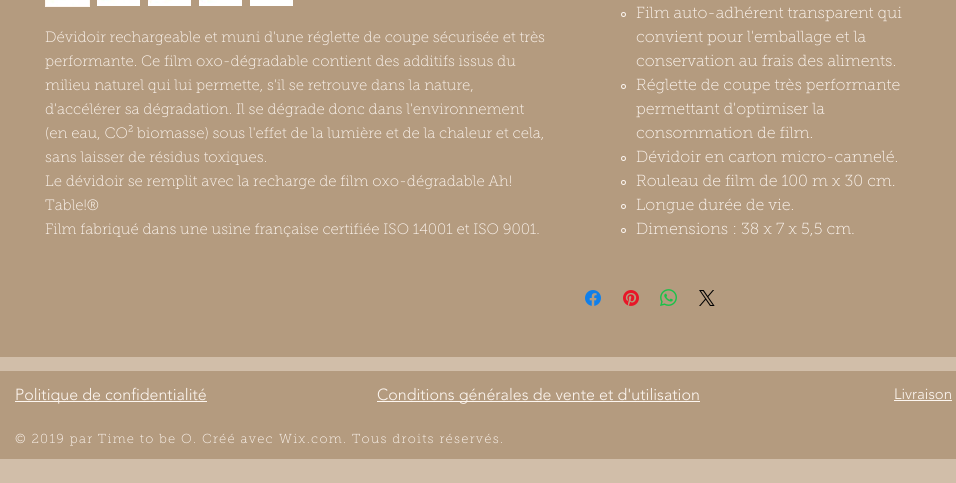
import math
import cairo


def use_color(cr, r, g, b):
  cr.set_source_rgb(r / 255, g / 255, b / 255)

def text(cr, x, y, s, family, size, color, bold=False, italic=False):
  cr.select_font_face(family, cairo.FONT_SLANT_ITALIC if italic else cairo.FONT_SLANT_NORMAL, cairo.FONT_WEIGHT_BOLD if bold else cairo.FONT_WEIGHT_NORMAL)
  cr.set_font_size(size)
  use_color(cr, *color)
  cr.move_to(x, y)
  cr.show_text(s)

def spaced_text(cr, x, y, s, letter, word):
  cr.move_to(x, y)
  for ch in s:
    cr.show_text(ch)
    cr.rel_move_to(letter + word * (ch == ' '), 0)

def box(cr, x, y, w, h, *color):
  use_color(cr, *color)
  cr.rectangle(x, y, w, h)
  cr.fill()

def picture(cr, path, x, y, w, h):
  cr.save()
  cr.set_source_surface(cairo.ImageSurface.create_from_png(path), x, y)
  cr.rectangle(x, y, w, h)
  cr.fill()
  cr.restore()

def draw(cr):
  use_color(cr, 209, 190, 169)
  cr.paint()
  box(cr, 0, 0, 956, 357, 180, 155, 127)
  cr.rectangle(45.5, -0.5, 44, 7)
  use_color(cr, 253, 246, 240)
  cr.set_line_width(1)
  cr.stroke()
  picture(cr, "img_01.png", 46, 0, 43, 6)
  picture(cr, "img_02.png", 97, 0, 43, 6)
  picture(cr, "img_03.png", 148, 0, 43, 6)
  picture(cr, "img_04.png", 199, 0, 43, 6)
  box(cr, 250, 0, 43, 6, 254, 255, 254)
  cr.arc(623.5, 14.5, 2, 0, 2 * math.pi)
  use_color(cr, 253, 246, 240)
  cr.stroke()
  cr.arc(623.5, 86.5, 2, 0, 2 * math.pi)
  cr.stroke()
  cr.arc(623.5, 158.5, 2, 0, 2 * math.pi)
  cr.stroke()
  cr.arc(623.5, 182.5, 2, 0, 2 * math.pi)
  cr.stroke()
  cr.arc(623.5, 206.5, 2, 0, 2 * math.pi)
  cr.stroke()
  cr.arc(623.5, 230.5, 2, 0, 2 * math.pi)
  cr.stroke()
  picture(cr, "img_05.png", 585, 290, 16, 16)
  picture(cr, "img_06.png", 623, 290, 16, 16)
  picture(cr, "img_07.png", 660, 289, 17, 17)
  picture(cr, "img_08.png", 699, 290, 16, 16)
  box(cr, 0, 371, 956, 88, 180, 155, 127)
  box(cr, 15, 401, 192, 1, 253, 246, 240)
  box(cr, 377, 401, 323, 1, 253, 246, 240)
  box(cr, 894, 400, 58, 1, 253, 246, 240)
  text(cr, 45, 42, "Dévidoir rechargeable et muni d'une réglette de coupe sécurisée et très", "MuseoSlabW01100 Thin", 15, (253, 246, 240))
  text(cr, 45, 66, "performante. Ce film oxo-dégradable contient des additifs issus du", "MuseoSlabW01100 Thin", 15, (253, 246, 240))
  text(cr, 45, 90, "milieu naturel qui lui permette, s'il se retrouve dans la nature,", "MuseoSlabW01100 Thin", 15, (253, 246, 240))
  text(cr, 45, 114, "d'accélérer sa dégradation. Il se dégrade donc dans l'environnement", "MuseoSlabW01100 Thin", 15, (253, 246, 240))
  text(cr, 45, 138, "(en eau, CO² biomasse) sous l'effet de la lumière et de la chaleur et cela,", "MuseoSlabW01100 Thin", 15, (253, 246, 240))
  text(cr, 45, 162, "sans laisser de résidus toxiques.", "MuseoSlabW01100 Thin", 15, (253, 246, 240))
  text(cr, 45, 186, "Le dévidoir se remplit avec la recharge de film oxo-dégradable Ah!", "MuseoSlabW01100 Thin", 15, (253, 246, 240))
  text(cr, 45, 210, "Table!®", "MuseoSlabW01100 Thin", 15, (253, 246, 240))
  text(cr, 45, 234, "Film fabriqué dans une usine française certifiée ISO 14001 et ISO 9001.", "MuseoSlabW01100 Thin", 15, (253, 246, 240))
  text(cr, 636, 18, "Film auto-adhérent transparent qui", "MuseoSlabW01100 Thin", 16, (253, 246, 240))
  text(cr, 636, 42, "convient pour l'emballage et la", "MuseoSlabW01100 Thin", 16, (253, 246, 240))
  text(cr, 636, 66, "conservation au frais des aliments.", "MuseoSlabW01100 Thin", 16, (253, 246, 240))
  text(cr, 636, 90, "Réglette de coupe très performante", "MuseoSlabW01100 Thin", 16, (253, 246, 240))
  text(cr, 636, 114, "permettant d'optimiser la", "MuseoSlabW01100 Thin", 16, (253, 246, 240))
  text(cr, 636, 138, "consommation de film.", "MuseoSlabW01100 Thin", 16, (253, 246, 240))
  text(cr, 636, 162, "Dévidoir en carton micro-cannelé.", "MuseoSlabW01100 Thin", 16, (253, 246, 240))
  text(cr, 636, 186, "Rouleau de film de 100 m x 30 cm.", "MuseoSlabW01100 Thin", 16, (253, 246, 240))
  text(cr, 636, 210, "Longue durée de vie.", "MuseoSlabW01100 Thin", 16, (253, 246, 240))
  text(cr, 636, 234, "Dimensions : 38 x 7 x 5,5 cm.", "MuseoSlabW01100 Thin", 16, (253, 246, 240))
  text(cr, 15, 400, "Politique de confidentialité", "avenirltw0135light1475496 Light", 16, (253, 246, 240))
  text(cr, 377, 400, "Conditions générales de vente et d'utilisation", "avenirltw0135light1475496 Light", 16, (253, 246, 240))
  text(cr, 894, 399, "Livraison", "avenirltw0135light1475496 Light", 15, (253, 246, 240))
  cr.select_font_face("MuseoSlabW01100 Thin")
  cr.set_font_size(13)
  spaced_text(cr, 15, 443, "© 2019 par Time to be O. Créé avec", 1.3, 0)
  spaced_text(cr, 279, 443, "Wix.com. Tous droits réservés.", 1.3, 0)


surface = cairo.ImageSurface(cairo.FORMAT_RGB24, 956, 483)
cr = cairo.Context(surface)
options = cairo.FontOptions()
options.set_hint_metrics(cairo.HINT_METRICS_OFF)
options.set_hint_style(cairo.HINT_STYLE_NONE)
cr.set_font_options(options)
cr.set_miter_limit(4)
draw(cr)
surface.write_to_png("out.png")
